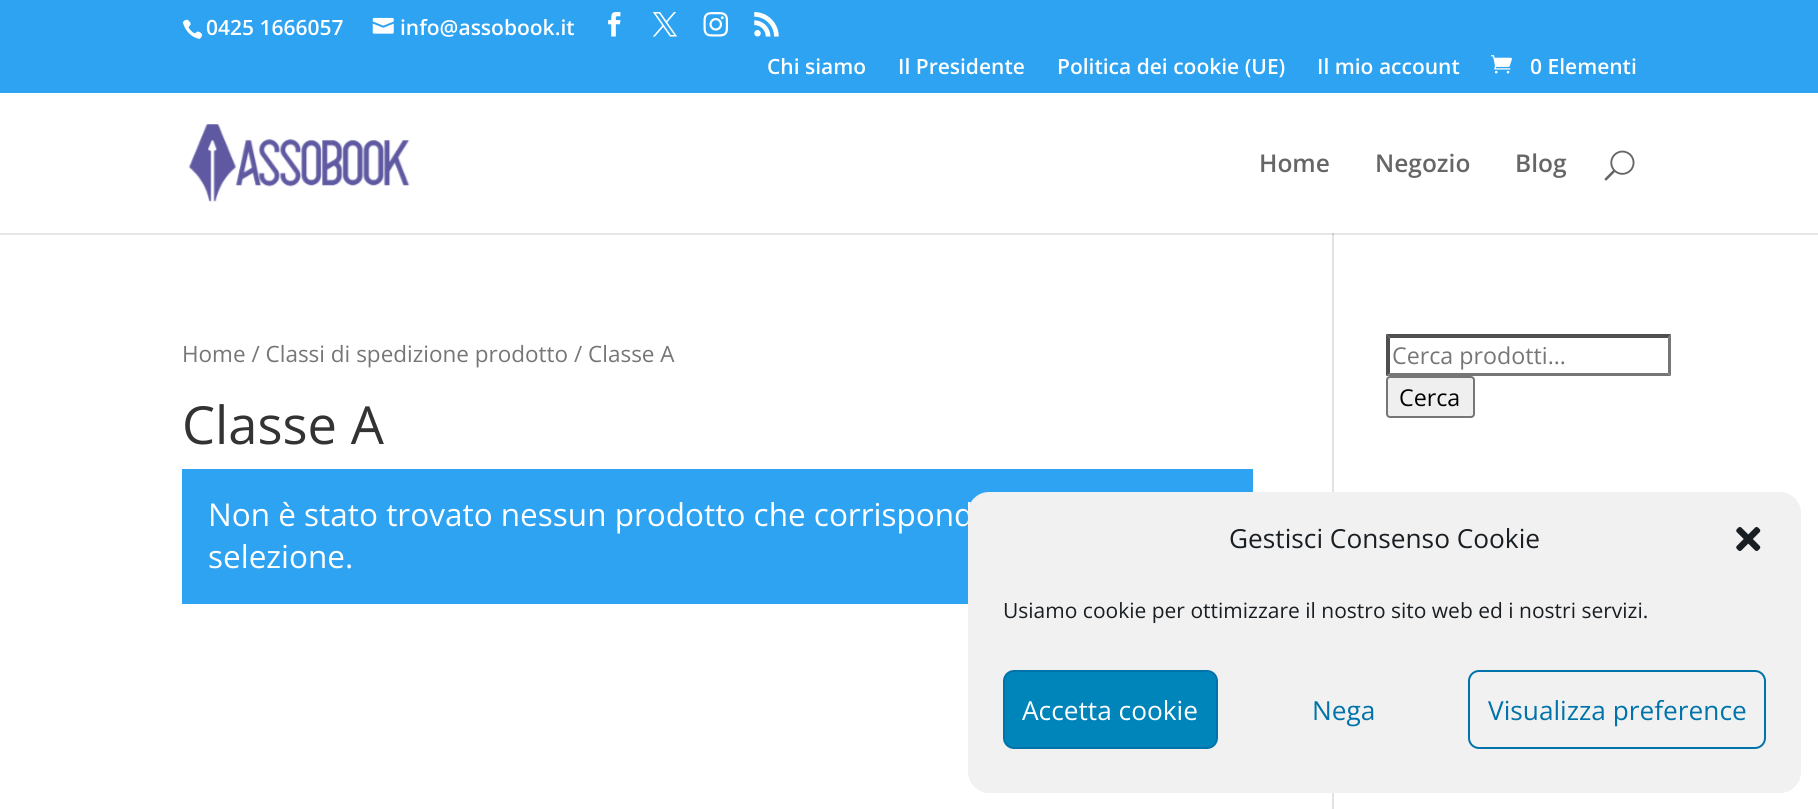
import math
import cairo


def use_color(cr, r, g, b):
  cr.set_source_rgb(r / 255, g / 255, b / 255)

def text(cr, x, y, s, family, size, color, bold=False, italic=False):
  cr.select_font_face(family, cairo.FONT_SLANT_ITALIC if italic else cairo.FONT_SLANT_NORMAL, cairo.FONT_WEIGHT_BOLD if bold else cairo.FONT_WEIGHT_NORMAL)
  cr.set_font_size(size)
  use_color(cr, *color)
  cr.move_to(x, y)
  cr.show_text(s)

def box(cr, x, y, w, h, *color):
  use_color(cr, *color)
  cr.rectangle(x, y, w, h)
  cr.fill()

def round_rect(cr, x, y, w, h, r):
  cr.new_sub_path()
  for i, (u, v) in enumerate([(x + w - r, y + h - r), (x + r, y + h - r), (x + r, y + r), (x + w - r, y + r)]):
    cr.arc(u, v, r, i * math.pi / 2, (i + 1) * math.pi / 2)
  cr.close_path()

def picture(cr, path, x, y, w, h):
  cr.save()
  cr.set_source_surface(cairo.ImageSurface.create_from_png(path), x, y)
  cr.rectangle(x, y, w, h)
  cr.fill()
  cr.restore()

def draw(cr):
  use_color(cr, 255, 255, 255)
  cr.paint()
  box(cr, 0, 233, 1818, 2, 230, 230, 230)
  box(cr, 0, 0, 1818, 93, 46, 163, 242)
  picture(cr, "img_01.png", 182, 19, 21, 20)
  picture(cr, "img_02.png", 372, 17, 22, 17)
  picture(cr, "img_03.png", 608, 12, 13, 25)
  picture(cr, "img_04.png", 652, 12, 26, 25)
  picture(cr, "img_05.png", 703, 12, 25, 25)
  picture(cr, "img_06.png", 754, 12, 25, 25)
  picture(cr, "img_07.png", 1491, 55, 21, 19)
  picture(cr, "img_08.png", 188, 124, 222, 78)
  picture(cr, "img_09.png", 1604, 150, 31, 31)
  box(cr, 1332, 233, 2, 576, 226, 226, 226)
  box(cr, 1332, 233, 2, 2, 203, 203, 203)
  box(cr, 182, 469, 1071, 135, 46, 163, 242)
  use_color(cr, 79, 79, 79)
  cr.new_path()
  cr.move_to(1386, 334)
  cr.line_to(1671, 334)
  cr.line_to(1668, 338)
  cr.line_to(1390, 338)
  cr.close_path()
  cr.fill()
  use_color(cr, 118, 118, 118)
  cr.new_path()
  cr.move_to(1671, 334)
  cr.line_to(1671, 376)
  cr.line_to(1668, 373)
  cr.line_to(1668, 338)
  cr.close_path()
  cr.fill()
  cr.new_path()
  cr.move_to(1671, 376)
  cr.line_to(1386, 376)
  cr.line_to(1390, 373)
  cr.line_to(1668, 373)
  cr.close_path()
  cr.fill()
  use_color(cr, 79, 79, 79)
  cr.new_path()
  cr.move_to(1386, 376)
  cr.line_to(1386, 334)
  cr.line_to(1390, 338)
  cr.line_to(1390, 373)
  cr.close_path()
  cr.fill()
  use_color(cr, 239, 239, 239)
  round_rect(cr, 1387, 377, 87, 40, 3)
  cr.fill_preserve()
  use_color(cr, 118, 118, 118)
  cr.stroke()
  text(cr, 206, 35, "0425 1666057", "Open Sans SemiBold", 21, (255, 255, 255))
  text(cr, 400, 35, "info@assobook.it", "Open Sans SemiBold", 21, (255, 255, 255))
  text(cr, 767, 74, "Chi siamo", "Open Sans SemiBold", 21, (255, 255, 255))
  text(cr, 898, 74, "Il Presidente", "Open Sans SemiBold", 21, (255, 255, 255))
  text(cr, 1057, 74, "Politica dei cookie (UE)", "Open Sans SemiBold", 21, (255, 255, 255))
  text(cr, 1317, 74, "Il mio account", "Open Sans SemiBold", 21, (255, 255, 255))
  text(cr, 1530, 74, "0 Elementi", "Open Sans SemiBold", 21, (255, 255, 255))
  text(cr, 1259, 172, "Home", "Open Sans SemiBold", 24.5, (102, 102, 102))
  text(cr, 1375, 172, "Negozio", "Open Sans SemiBold", 24.5, (102, 102, 102))
  text(cr, 1515, 172, "Blog", "Open Sans SemiBold", 24.5, (102, 102, 102))
  text(cr, 182, 362, "Home / Classi di spedizione prodotto / Classe A", "Open Sans", 22.5, (118, 118, 118))
  text(cr, 182, 444, "Classe A", "Open Sans", 52.5, (51, 51, 51))
  text(cr, 208, 526, "Non è stato trovato nessun prodotto che corrispond", "Open Sans", 31.5, (255, 255, 255))
  text(cr, 208, 568, "selezione.", "Open Sans", 31.5, (255, 255, 255))
  text(cr, 1392, 364, "Cerca prodotti…", "Open Sans", 23.25, (118, 118, 118))
  text(cr, 1399, 406, "Cerca", "Open Sans", 23.25, (0, 0, 0))
  use_color(cr, 241, 241, 241)
  round_rect(cr, 968, 492, 833, 301, 21)
  cr.fill()
  text(cr, 1229, 548, "Gestisci Consenso Cookie", "Open Sans", 26.25, (25, 30, 35))
  picture(cr, "img_10.png", 1736, 527, 25, 24)
  text(cr, 1003, 618, "Usiamo cookie per ottimizzare il nostro sito web ed i nostri servizi.", "Open Sans", 21, (25, 30, 35))
  use_color(cr, 0, 133, 186)
  round_rect(cr, 1004, 671, 213, 77, 10)
  cr.fill_preserve()
  use_color(cr, 0, 115, 170)
  cr.stroke()
  text(cr, 1022, 720, "Accetta cookie", "Open Sans", 26.25, (255, 255, 255))
  text(cr, 1312, 720, "Nega", "Open Sans", 26.25, (0, 115, 170))
  round_rect(cr, 1469, 671, 296, 77, 10)
  cr.stroke()
  text(cr, 1488, 720, "Visualizza preference", "Open Sans", 26.25, (0, 115, 170))


surface = cairo.ImageSurface(cairo.FORMAT_RGB24, 1818, 809)
cr = cairo.Context(surface)
options = cairo.FontOptions()
options.set_hint_metrics(cairo.HINT_METRICS_OFF)
options.set_hint_style(cairo.HINT_STYLE_NONE)
cr.set_font_options(options)
cr.set_miter_limit(4)
draw(cr)
surface.write_to_png("out.png")
